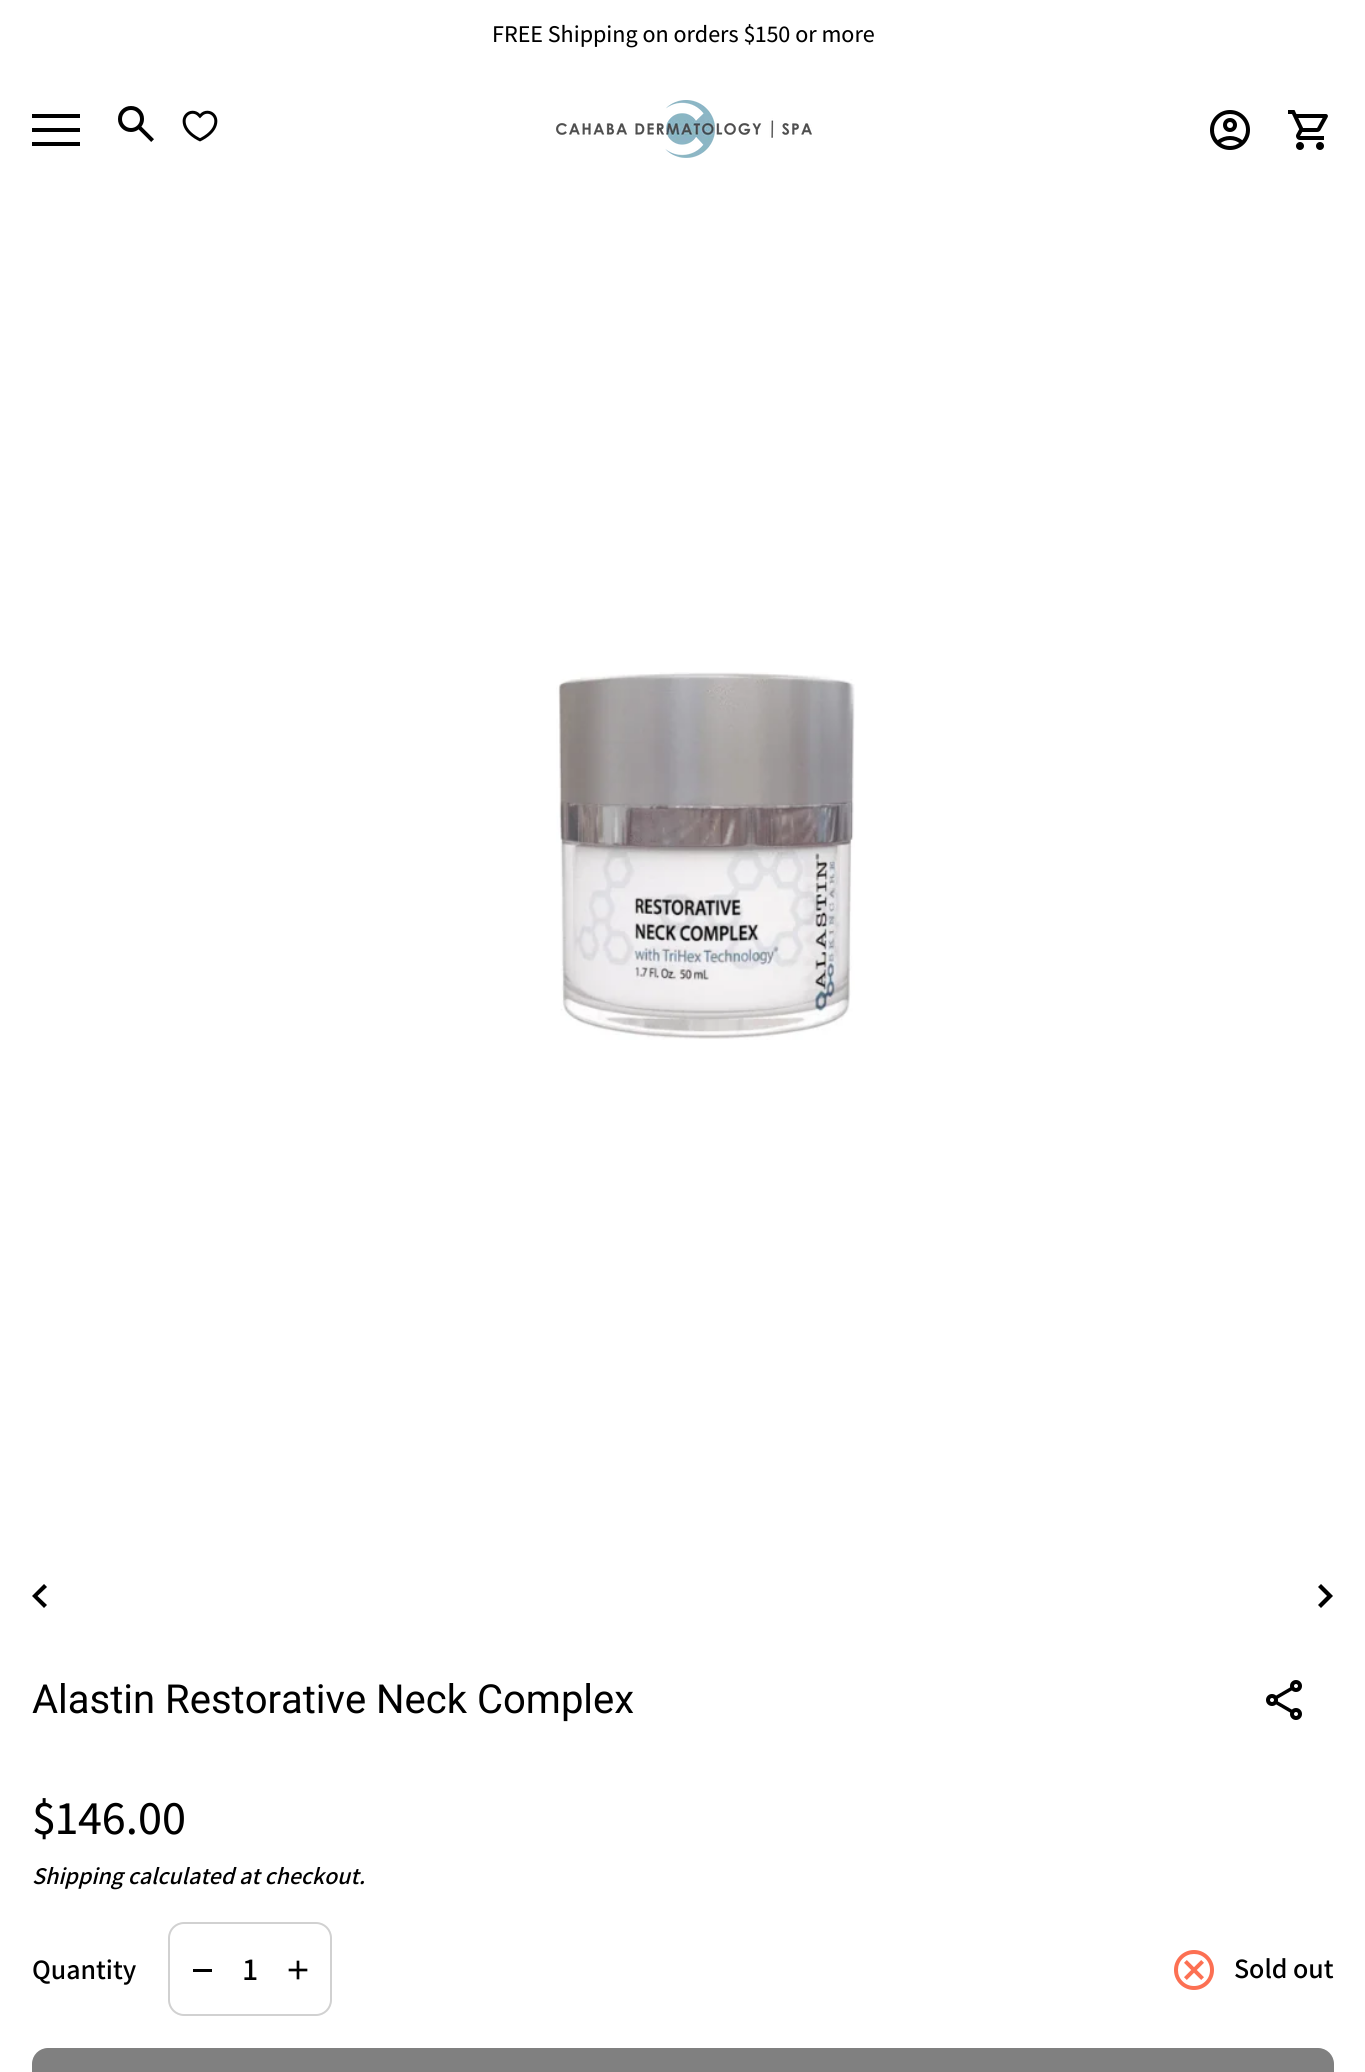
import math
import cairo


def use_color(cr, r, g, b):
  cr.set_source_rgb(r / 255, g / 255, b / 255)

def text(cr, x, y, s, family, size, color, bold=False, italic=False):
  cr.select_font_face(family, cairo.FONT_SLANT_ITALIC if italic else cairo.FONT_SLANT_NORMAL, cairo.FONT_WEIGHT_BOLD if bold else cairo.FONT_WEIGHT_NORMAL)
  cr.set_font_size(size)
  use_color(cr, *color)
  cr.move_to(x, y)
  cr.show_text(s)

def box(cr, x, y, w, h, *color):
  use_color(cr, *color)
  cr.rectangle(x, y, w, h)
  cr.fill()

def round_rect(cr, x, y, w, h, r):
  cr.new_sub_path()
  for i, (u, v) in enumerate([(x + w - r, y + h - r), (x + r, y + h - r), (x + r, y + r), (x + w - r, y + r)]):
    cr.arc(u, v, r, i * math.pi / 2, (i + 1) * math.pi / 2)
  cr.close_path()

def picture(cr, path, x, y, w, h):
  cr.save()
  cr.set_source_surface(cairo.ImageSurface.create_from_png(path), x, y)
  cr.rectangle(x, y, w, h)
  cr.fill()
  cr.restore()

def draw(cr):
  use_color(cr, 255, 255, 255)
  cr.paint()
  box(cr, 32, 114, 48, 4, 0, 0, 0)
  box(cr, 32, 128, 48, 4, 0, 0, 0)
  box(cr, 32, 142, 48, 4, 0, 0, 0)
  picture(cr, "img_01.png", 118, 106, 36, 36)
  picture(cr, "img_02.png", 182, 110, 36, 32)
  picture(cr, "img_03.png", 556, 100, 256, 58)
  picture(cr, "img_04.png", 1210, 110, 40, 40)
  picture(cr, "img_05.png", 1288, 110, 40, 40)
  picture(cr, "img_06.png", 556, 672, 299, 368)
  cr.new_path()
  cr.move_to(44, 1608)
  cr.line_to(32, 1596)
  cr.line_to(44, 1584)
  cr.line_to(47, 1587)
  cr.line_to(37.5, 1596)
  cr.line_to(47, 1605)
  cr.close_path()
  cr.fill()
  cr.new_path()
  cr.move_to(1327, 1596)
  cr.line_to(1318, 1587)
  cr.line_to(1321, 1584)
  cr.line_to(1333, 1596)
  cr.line_to(1321, 1608)
  cr.line_to(1318, 1605)
  cr.close_path()
  cr.fill()
  picture(cr, "img_07.png", 1266, 1680, 36, 40)
  round_rect(cr, 169, 1923, 162, 92, 15)
  use_color(cr, 209, 209, 209)
  cr.stroke()
  box(cr, 193, 1969, 19, 3, 0, 0, 0)
  picture(cr, "img_08.png", 288, 1960, 20, 20)
  picture(cr, "img_09.png", 1174, 1950, 40, 40)
  use_color(cr, 128, 128, 128)
  round_rect(cr, 33, 2049, 1300, 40, 15)
  cr.fill_preserve()
  cr.stroke()
  text(cr, 492, 42, "FREE Shipping on orders $150 or more", "Assistant Medium", 24, (0, 0, 0))
  text(cr, 32, 1713, "Alastin Restorative Neck Complex", "Roboto", 40, (0, 0, 0))
  text(cr, 32, 1834, "$146.00", "Assistant Medium", 48, (0, 0, 0))
  text(cr, 32, 1884, "Shipping calculated at checkout.", "Assistant SemiBold", 24, (0, 0, 0), italic=True)
  text(cr, 32, 1979, "Quantity", "Assistant SemiBold", 28, (0, 0, 0))
  text(cr, 243, 1980, "1", "Assistant SemiBold", 32, (0, 0, 0))
  text(cr, 1234, 1978, "Sold out", "Assistant SemiBold", 28, (0, 0, 0))


surface = cairo.ImageSurface(cairo.FORMAT_RGB24, 1365, 2072)
cr = cairo.Context(surface)
options = cairo.FontOptions()
options.set_hint_metrics(cairo.HINT_METRICS_OFF)
options.set_hint_style(cairo.HINT_STYLE_NONE)
cr.set_font_options(options)
cr.set_miter_limit(4)
draw(cr)
surface.write_to_png("out.png")
